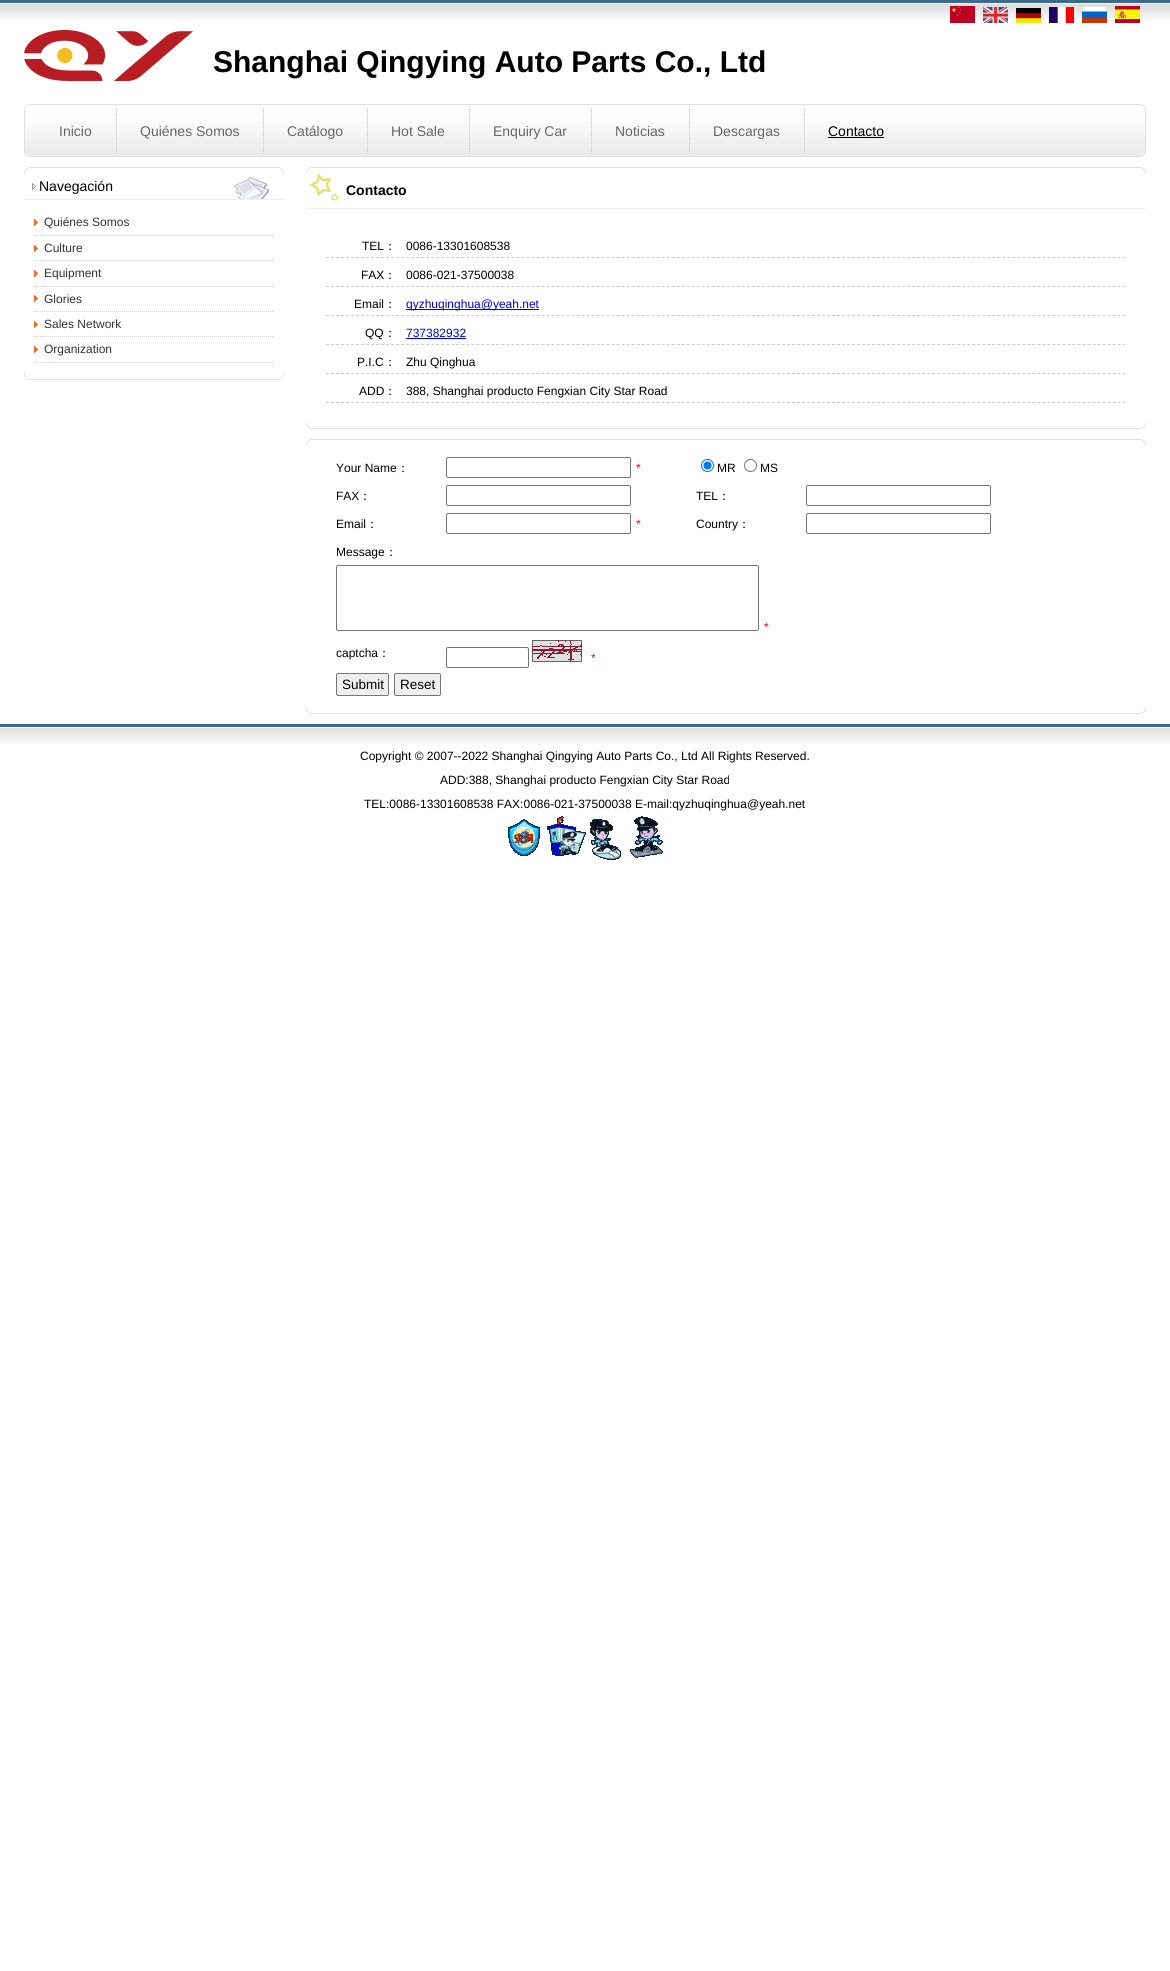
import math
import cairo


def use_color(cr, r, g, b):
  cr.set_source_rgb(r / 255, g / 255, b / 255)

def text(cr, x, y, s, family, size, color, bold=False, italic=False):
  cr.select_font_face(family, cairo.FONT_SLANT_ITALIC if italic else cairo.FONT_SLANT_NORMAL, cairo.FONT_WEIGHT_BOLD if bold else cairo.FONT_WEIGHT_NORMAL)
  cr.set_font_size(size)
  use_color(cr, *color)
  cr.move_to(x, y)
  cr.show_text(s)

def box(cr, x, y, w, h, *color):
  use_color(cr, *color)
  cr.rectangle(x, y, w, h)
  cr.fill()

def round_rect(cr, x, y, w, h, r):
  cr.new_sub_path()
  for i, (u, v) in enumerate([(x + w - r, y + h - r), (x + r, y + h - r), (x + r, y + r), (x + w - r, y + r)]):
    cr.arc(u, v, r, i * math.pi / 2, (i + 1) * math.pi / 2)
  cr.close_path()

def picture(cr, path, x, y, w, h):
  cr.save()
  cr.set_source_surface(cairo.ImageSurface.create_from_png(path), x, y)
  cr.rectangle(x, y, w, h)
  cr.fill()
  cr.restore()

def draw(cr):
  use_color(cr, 255, 255, 255)
  cr.paint()
  picture(cr, "img_01.png", 0, 0, 1170, 20)
  picture(cr, "img_02.png", 950, 6, 25, 17)
  picture(cr, "img_03.png", 983, 7, 25, 16)
  picture(cr, "img_04.png", 1016, 8, 25, 15)
  picture(cr, "img_05.png", 1049, 7, 25, 16)
  picture(cr, "img_06.png", 1082, 6, 25, 17)
  picture(cr, "img_07.png", 1115, 6, 25, 17)
  picture(cr, "img_08.png", 24, 30, 169, 51)
  picture(cr, "img_09.png", 24, 104, 11, 53)
  picture(cr, "img_10.png", 1140, 104, 6, 53)
  picture(cr, "img_11.png", 35, 104, 1105, 53)
  picture(cr, "img_12.png", 116, 109, 1, 45)
  picture(cr, "img_12.png", 263, 109, 1, 45)
  picture(cr, "img_12.png", 367, 109, 1, 45)
  picture(cr, "img_12.png", 469, 109, 1, 45)
  picture(cr, "img_12.png", 591, 109, 1, 45)
  picture(cr, "img_12.png", 689, 109, 1, 45)
  picture(cr, "img_12.png", 804, 109, 1, 45)
  box(cr, 828, 137, 56, 1, 0, 0, 0)
  picture(cr, "img_13.png", 24, 167, 260, 7)
  picture(cr, "img_14.png", 24, 373, 260, 7)
  picture(cr, "img_15.png", 234, 177, 35, 22)
  box(cr, 24, 199, 260, 1, 238, 238, 238)
  picture(cr, "img_16.png", 32, 183, 4, 7)
  picture(cr, "img_17.png", 34, 219, 4, 7)
  cr.new_path()
  cr.move_to(34, 235.5)
  cr.line_to(274, 235.5)
  use_color(cr, 204, 204, 204)
  cr.set_line_width(1)
  cr.set_dash([1, 1])
  cr.stroke()
  picture(cr, "img_17.png", 34, 245, 4, 7)
  cr.new_path()
  cr.move_to(34, 260.5)
  cr.line_to(274, 260.5)
  cr.stroke()
  picture(cr, "img_17.png", 34, 270, 4, 7)
  cr.new_path()
  cr.move_to(34, 286.5)
  cr.line_to(274, 286.5)
  cr.stroke()
  picture(cr, "img_17.png", 34, 295, 4, 7)
  cr.new_path()
  cr.move_to(34, 311.5)
  cr.line_to(274, 311.5)
  cr.stroke()
  picture(cr, "img_17.png", 34, 321, 4, 7)
  cr.new_path()
  cr.move_to(34, 336.5)
  cr.line_to(274, 336.5)
  cr.stroke()
  picture(cr, "img_17.png", 34, 346, 4, 7)
  cr.new_path()
  cr.move_to(34, 362.5)
  cr.line_to(274, 362.5)
  cr.stroke()
  picture(cr, "img_18.png", 306, 167, 840, 6)
  picture(cr, "img_19.png", 306, 423, 840, 6)
  picture(cr, "img_20.png", 310, 174, 29, 27)
  box(cr, 306, 208, 840, 1, 238, 238, 238)
  cr.new_path()
  cr.move_to(326, 257.5)
  cr.line_to(1126, 257.5)
  use_color(cr, 204, 204, 204)
  cr.set_dash([3, 2.01])
  cr.stroke()
  cr.new_path()
  cr.move_to(326, 286.5)
  cr.line_to(1126, 286.5)
  cr.stroke()
  cr.new_path()
  cr.move_to(326, 315.5)
  cr.line_to(1126, 315.5)
  cr.stroke()
  box(cr, 406, 309, 133, 1, 0, 0, 238)
  cr.new_path()
  cr.move_to(326, 344.5)
  cr.line_to(1126, 344.5)
  use_color(cr, 204, 204, 204)
  cr.stroke()
  box(cr, 406, 338, 60, 1, 0, 0, 238)
  cr.new_path()
  cr.move_to(326, 373.5)
  cr.line_to(1126, 373.5)
  use_color(cr, 204, 204, 204)
  cr.stroke()
  cr.new_path()
  cr.move_to(326, 402.5)
  cr.line_to(1126, 402.5)
  cr.stroke()
  picture(cr, "img_18.png", 306, 439, 840, 6)
  picture(cr, "img_19.png", 306, 708, 840, 6)
  round_rect(cr, 446.5, 457.5, 184, 20, 1.5)
  use_color(cr, 118, 118, 118)
  cr.set_dash([])
  cr.stroke()
  cr.arc(707.5, 465.5, 6, 0, 2 * math.pi)
  use_color(cr, 0, 117, 255)
  cr.stroke()
  cr.arc(707.5, 465.5, 4, 0, 2 * math.pi)
  cr.fill()
  cr.arc(750.5, 465.5, 6, 0, 2 * math.pi)
  use_color(cr, 118, 118, 118)
  cr.stroke()
  round_rect(cr, 446.5, 485.5, 184, 20, 1.5)
  cr.stroke()
  round_rect(cr, 806.5, 485.5, 184, 20, 1.5)
  cr.stroke()
  round_rect(cr, 446.5, 513.5, 184, 20, 1.5)
  cr.stroke()
  round_rect(cr, 806.5, 513.5, 184, 20, 1.5)
  cr.stroke()
  round_rect(cr, 336.5, 565.5, 422, 65, 1.5)
  cr.stroke()
  round_rect(cr, 446.5, 647.5, 82, 20, 1.5)
  cr.stroke()
  picture(cr, "img_21.png", 532, 640, 50, 22)
  use_color(cr, 239, 239, 239)
  round_rect(cr, 336.5, 673.5, 52, 22, 1.5)
  cr.fill_preserve()
  use_color(cr, 118, 118, 118)
  cr.stroke()
  use_color(cr, 239, 239, 239)
  round_rect(cr, 394.5, 673.5, 46, 22, 1.5)
  cr.fill_preserve()
  use_color(cr, 118, 118, 118)
  cr.stroke()
  picture(cr, "img_22.png", 0, 724, 1170, 20)
  picture(cr, "img_23.png", 508, 816, 155, 44)
  text(cr, 213, 72, "Shanghai Qingying Auto Parts Co., Ltd", "Liberation Sans", 30, (0, 0, 0), bold=True)
  text(cr, 59, 136, "Inicio", "Liberation Sans", 14, (102, 102, 102))
  text(cr, 140, 136, "Quiénes Somos", "Liberation Sans", 14, (102, 102, 102))
  text(cr, 287, 136, "Catálogo", "Liberation Sans", 14, (102, 102, 102))
  text(cr, 391, 136, "Hot Sale", "Liberation Sans", 14, (102, 102, 102))
  text(cr, 493, 136, "Enquiry Car", "Liberation Sans", 14, (102, 102, 102))
  text(cr, 615, 136, "Noticias", "Liberation Sans", 14, (102, 102, 102))
  text(cr, 713, 136, "Descargas", "Liberation Sans", 14, (102, 102, 102))
  text(cr, 828, 136, "Contacto", "Liberation Sans", 14, (0, 0, 0))
  text(cr, 39, 191, "Navegación", "Liberation Sans", 14, (0, 0, 0))
  text(cr, 44, 226, "Quiénes Somos", "Liberation Sans", 12, (51, 51, 51))
  text(cr, 44, 252, "Culture", "Liberation Sans", 12, (51, 51, 51))
  text(cr, 44, 277, "Equipment", "Liberation Sans", 12, (51, 51, 51))
  text(cr, 44, 303, "Glories", "Liberation Sans", 12, (51, 51, 51))
  text(cr, 44, 328, "Sales Network", "Liberation Sans", 12, (51, 51, 51))
  text(cr, 44, 353, "Organization", "Liberation Sans", 12, (51, 51, 51))
  text(cr, 346, 195, "Contacto", "Liberation Sans", 14, (0, 0, 0), bold=True)
  text(cr, 362, 250, "TEL", "Liberation Sans", 12, (0, 0, 0))
  text(cr, 384, 250, "：", "WenQuanYi Zen Hei Medium", 12, (0, 0, 0))
  text(cr, 406, 250, "0086-13301608538", "Liberation Sans", 12, (0, 0, 0))
  text(cr, 361, 279, "FAX", "Liberation Sans", 12, (0, 0, 0))
  text(cr, 384, 279, "：", "WenQuanYi Zen Hei Medium", 12, (0, 0, 0))
  text(cr, 406, 279, "0086-021-37500038", "Liberation Sans", 12, (0, 0, 0))
  text(cr, 354, 308, "Email", "Liberation Sans", 12, (0, 0, 0))
  text(cr, 384, 308, "：", "WenQuanYi Zen Hei Medium", 12, (0, 0, 0))
  text(cr, 406, 308, "qyzhuqinghua@yeah.net", "Liberation Sans", 12, (0, 0, 238))
  text(cr, 365, 337, "QQ", "Liberation Sans", 12, (0, 0, 0))
  text(cr, 384, 337, "：", "WenQuanYi Zen Hei Medium", 12, (0, 0, 0))
  text(cr, 406, 337, "737382932", "Liberation Sans", 12, (0, 0, 238))
  text(cr, 357, 366, "P.I.C", "Liberation Sans", 12, (0, 0, 0))
  text(cr, 384, 366, "：", "WenQuanYi Zen Hei Medium", 12, (0, 0, 0))
  text(cr, 406, 366, "Zhu Qinghua", "Liberation Sans", 12, (0, 0, 0))
  text(cr, 359, 395, "ADD", "Liberation Sans", 12, (0, 0, 0))
  text(cr, 384, 395, "：", "WenQuanYi Zen Hei Medium", 12, (0, 0, 0))
  text(cr, 406, 395, "388, Shanghai producto Fengxian City Star Road", "Liberation Sans", 12, (0, 0, 0))
  text(cr, 336, 472, "Your Name", "Liberation Sans", 12, (0, 0, 0))
  text(cr, 397, 472, "：", "WenQuanYi Zen Hei Medium", 12, (0, 0, 0))
  text(cr, 636, 472, "*", "Liberation Sans", 12, (255, 0, 0))
  text(cr, 717, 472, "MR", "Liberation Sans", 12, (0, 0, 0))
  text(cr, 760, 472, "MS", "Liberation Sans", 12, (0, 0, 0))
  text(cr, 336, 500, "FAX", "Liberation Sans", 12, (0, 0, 0))
  text(cr, 359, 500, "：", "WenQuanYi Zen Hei Medium", 12, (0, 0, 0))
  text(cr, 696, 500, "TEL", "Liberation Sans", 12, (0, 0, 0))
  text(cr, 718, 500, "：", "WenQuanYi Zen Hei Medium", 12, (0, 0, 0))
  text(cr, 336, 528, "Email", "Liberation Sans", 12, (0, 0, 0))
  text(cr, 366, 528, "：", "WenQuanYi Zen Hei Medium", 12, (0, 0, 0))
  text(cr, 636, 528, "*", "Liberation Sans", 12, (255, 0, 0))
  text(cr, 696, 528, "Country", "Liberation Sans", 12, (0, 0, 0))
  text(cr, 738, 528, "：", "WenQuanYi Zen Hei Medium", 12, (0, 0, 0))
  text(cr, 336, 556, "Message", "Liberation Sans", 12, (0, 0, 0))
  text(cr, 385, 556, "：", "WenQuanYi Zen Hei Medium", 12, (0, 0, 0))
  text(cr, 764, 631, "*", "Liberation Sans", 12, (255, 0, 0))
  text(cr, 336, 657, "captcha", "Liberation Sans", 12, (0, 0, 0))
  text(cr, 378, 657, "：", "WenQuanYi Zen Hei Medium", 12, (0, 0, 0))
  text(cr, 591, 662, "*", "Liberation Sans", 12, (255, 0, 0))
  text(cr, 342, 689, "Submit", "Liberation Sans", 13.5, (0, 0, 0))
  text(cr, 400, 689, "Reset", "Liberation Sans", 13.5, (0, 0, 0))
  text(cr, 360, 760, "Copyright © 2007--2022 Shanghai Qingying Auto Parts Co., Ltd All Rights Reserved.", "Liberation Sans", 12, (0, 0, 0))
  text(cr, 440, 784, "ADD:388, Shanghai producto Fengxian City Star Road", "Liberation Sans", 12, (0, 0, 0))
  text(cr, 364, 808, "TEL:0086-13301608538 FAX:0086-021-37500038 E-mail:qyzhuqinghua@yeah.net", "Liberation Sans", 12, (0, 0, 0))


surface = cairo.ImageSurface(cairo.FORMAT_RGB24, 1170, 1971)
cr = cairo.Context(surface)
options = cairo.FontOptions()
options.set_hint_metrics(cairo.HINT_METRICS_OFF)
options.set_hint_style(cairo.HINT_STYLE_NONE)
cr.set_font_options(options)
cr.set_miter_limit(4)
draw(cr)
surface.write_to_png("out.png")
